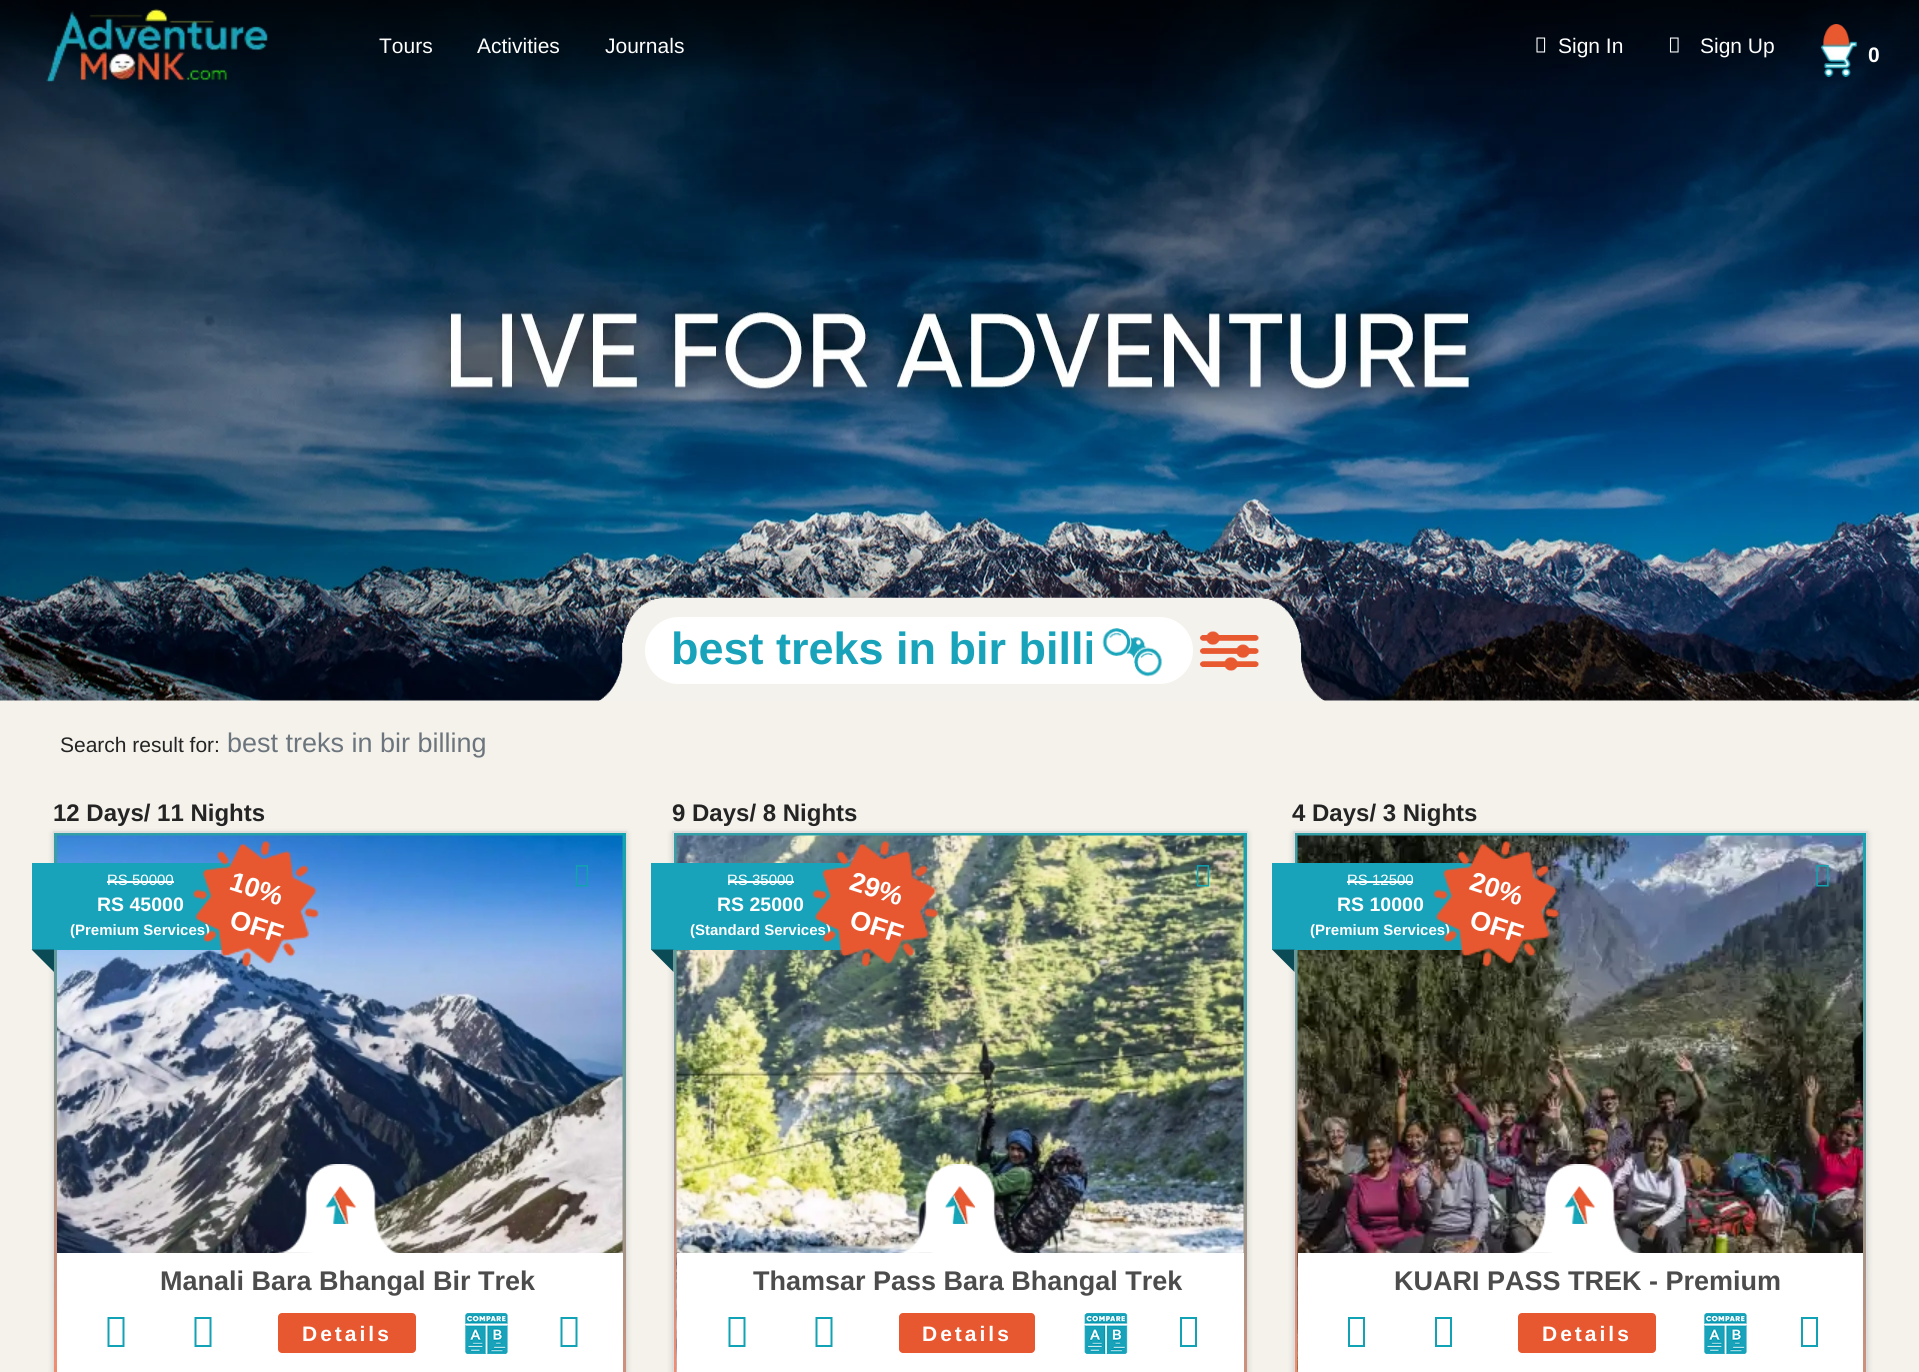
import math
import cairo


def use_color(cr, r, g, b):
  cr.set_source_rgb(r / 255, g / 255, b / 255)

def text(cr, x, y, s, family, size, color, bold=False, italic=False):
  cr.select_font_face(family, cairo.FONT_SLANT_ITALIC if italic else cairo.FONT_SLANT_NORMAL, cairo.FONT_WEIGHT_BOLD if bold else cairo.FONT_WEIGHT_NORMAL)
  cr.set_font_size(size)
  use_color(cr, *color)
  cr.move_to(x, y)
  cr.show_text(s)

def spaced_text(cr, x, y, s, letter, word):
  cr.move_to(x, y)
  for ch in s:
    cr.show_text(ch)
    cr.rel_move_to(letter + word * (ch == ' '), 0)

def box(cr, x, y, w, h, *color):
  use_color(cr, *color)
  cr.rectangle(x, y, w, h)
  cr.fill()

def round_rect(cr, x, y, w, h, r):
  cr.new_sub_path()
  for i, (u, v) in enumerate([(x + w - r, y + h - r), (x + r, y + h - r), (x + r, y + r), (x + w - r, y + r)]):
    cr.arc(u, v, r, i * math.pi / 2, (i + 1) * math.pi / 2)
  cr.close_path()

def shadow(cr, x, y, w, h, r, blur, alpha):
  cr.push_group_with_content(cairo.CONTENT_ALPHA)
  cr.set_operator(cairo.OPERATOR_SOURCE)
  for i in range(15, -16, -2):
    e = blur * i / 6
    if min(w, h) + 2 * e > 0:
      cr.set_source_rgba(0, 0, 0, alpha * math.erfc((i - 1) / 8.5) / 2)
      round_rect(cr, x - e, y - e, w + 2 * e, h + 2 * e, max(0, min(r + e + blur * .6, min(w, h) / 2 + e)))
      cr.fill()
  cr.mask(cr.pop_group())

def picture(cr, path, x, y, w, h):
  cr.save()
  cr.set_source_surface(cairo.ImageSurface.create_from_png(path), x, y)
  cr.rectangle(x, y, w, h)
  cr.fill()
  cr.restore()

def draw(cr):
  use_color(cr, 244, 242, 235)
  cr.paint()
  picture(cr, "img_01.png", 0, 0, 1919, 701)
  picture(cr, "img_02.png", 46, 8, 222, 74)
  picture(cr, "img_03.png", 1536, 37, 10, 16)
  picture(cr, "img_04.png", 1669, 37, 10, 16)
  picture(cr, "img_05.png", 1821, 24, 36, 53)
  picture(cr, "img_06.png", 599, 597, 726, 104)
  use_color(cr, 255, 255, 255)
  round_rect(cr, 645, 617, 548, 67, 33.5)
  cr.fill()
  picture(cr, "img_07.png", 1102, 628, 60, 49)
  picture(cr, "img_08.png", 1200, 631, 59, 40)
  use_color(cr, 0, 0, 0)
  shadow(cr, 53, 833, 574, 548, 0, 3, 0.14)
  cr.rectangle(54, 832, 572, 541)
  use_color(cr, 221, 221, 221)
  cr.stroke()
  gradient = cairo.LinearGradient(395, 792, 284, 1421)
  gradient.add_color_stop_rgba(0, 0.067, 0.639, 0.69, 1)
  gradient.add_color_stop_rgba(1, 0.965, 0.549, 0.439, 1)
  cr.set_source(gradient)
  cr.rectangle(54, 833, 572, 539)
  cr.fill()
  picture(cr, "img_09.png", 57, 835, 566, 418)
  use_color(cr, 24, 163, 186)
  cr.new_path()
  cr.move_to(32, 863)
  cr.line_to(226, 863)
  cr.curve_to(238.5, 863, 249, 873.5, 249, 886)
  cr.line_to(249, 927)
  cr.curve_to(249, 939.5, 238.5, 950, 226, 950)
  cr.line_to(32, 950)
  cr.close_path()
  cr.fill()
  box(cr, 107, 881, 67, 2, 255, 255, 255)
  use_color(cr, 11, 75, 86)
  cr.new_path()
  cr.move_to(31.5, 949.5)
  cr.line_to(54, 949.5)
  cr.line_to(54, 972)
  cr.close_path()
  cr.fill()
  picture(cr, "img_11.png", 575, 865, 14, 22)
  box(cr, 57, 1253, 566, 119, 255, 255, 255)
  picture(cr, "img_12.png", 275, 1164, 129, 89)
  picture(cr, "img_13.png", 325, 1186, 31, 38)
  use_color(cr, 17, 162, 181)
  cr.new_path()
  cr.move_to(107.5, 1347)
  cr.line_to(107.5, 1317)
  cr.line_to(124.5, 1317)
  cr.line_to(124.5, 1347)
  cr.close_path()
  cr.move_to(109.5, 1345)
  cr.line_to(122.5, 1345)
  cr.line_to(122.5, 1319)
  cr.line_to(109.5, 1319)
  cr.close_path()
  cr.fill()
  cr.new_path()
  cr.move_to(194.5, 1347)
  cr.line_to(194.5, 1317)
  cr.line_to(211.5, 1317)
  cr.line_to(211.5, 1347)
  cr.close_path()
  cr.move_to(196.5, 1345)
  cr.line_to(209.5, 1345)
  cr.line_to(209.5, 1319)
  cr.line_to(196.5, 1319)
  cr.close_path()
  cr.fill()
  use_color(cr, 232, 88, 48)
  round_rect(cr, 278, 1313, 138, 40, 4)
  cr.fill()
  picture(cr, "img_14.png", 465, 1313, 43, 41)
  use_color(cr, 17, 162, 181)
  cr.new_path()
  cr.move_to(560.5, 1347)
  cr.line_to(560.5, 1317)
  cr.line_to(577.5, 1317)
  cr.line_to(577.5, 1347)
  cr.close_path()
  cr.move_to(562.5, 1345)
  cr.line_to(575.5, 1345)
  cr.line_to(575.5, 1319)
  cr.line_to(562.5, 1319)
  cr.close_path()
  cr.fill()
  use_color(cr, 0, 0, 0)
  shadow(cr, 672, 833, 576, 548, 0, 3, 0.14)
  cr.rectangle(673, 832, 574, 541)
  use_color(cr, 221, 221, 221)
  cr.stroke()
  gradient = cairo.LinearGradient(1015, 792, 905, 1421)
  gradient.add_color_stop_rgba(0, 0.067, 0.639, 0.69, 1)
  gradient.add_color_stop_rgba(1, 0.965, 0.549, 0.439, 1)
  cr.set_source(gradient)
  cr.rectangle(674, 833, 573, 539)
  cr.fill()
  picture(cr, "img_15.png", 676, 835, 568, 537)
  use_color(cr, 24, 163, 186)
  cr.new_path()
  cr.move_to(651, 863)
  cr.line_to(846, 863)
  cr.curve_to(858.5, 863, 869, 873.5, 869, 886)
  cr.line_to(869, 927)
  cr.curve_to(869, 939.5, 858.5, 950, 846, 950)
  cr.line_to(651, 950)
  cr.close_path()
  cr.fill()
  box(cr, 728, 881, 66, 2, 255, 255, 255)
  use_color(cr, 11, 75, 86)
  cr.new_path()
  cr.move_to(651, 949.5)
  cr.line_to(673.5, 949.5)
  cr.line_to(673.5, 972)
  cr.close_path()
  cr.fill()
  picture(cr, "img_17.png", 1196, 865, 14, 22)
  box(cr, 677, 1253, 567, 119, 255, 255, 255)
  picture(cr, "img_18.png", 895, 1164, 128, 89)
  picture(cr, "img_19.png", 945, 1186, 30, 38)
  use_color(cr, 17, 162, 181)
  cr.new_path()
  cr.move_to(728.5, 1347)
  cr.line_to(728.5, 1317)
  cr.line_to(745.5, 1317)
  cr.line_to(745.5, 1347)
  cr.close_path()
  cr.move_to(730.5, 1345)
  cr.line_to(743.5, 1345)
  cr.line_to(743.5, 1319)
  cr.line_to(730.5, 1319)
  cr.close_path()
  cr.fill()
  cr.new_path()
  cr.move_to(815.5, 1347)
  cr.line_to(815.5, 1317)
  cr.line_to(832.5, 1317)
  cr.line_to(832.5, 1347)
  cr.close_path()
  cr.move_to(817.5, 1345)
  cr.line_to(830.5, 1345)
  cr.line_to(830.5, 1319)
  cr.line_to(817.5, 1319)
  cr.close_path()
  cr.fill()
  use_color(cr, 232, 88, 48)
  round_rect(cr, 899, 1313, 136, 40, 4)
  cr.fill()
  picture(cr, "img_20.png", 1084, 1313, 44, 41)
  use_color(cr, 17, 162, 181)
  cr.new_path()
  cr.move_to(1180, 1347)
  cr.line_to(1180, 1317)
  cr.line_to(1197, 1317)
  cr.line_to(1197, 1347)
  cr.close_path()
  cr.move_to(1182, 1345)
  cr.line_to(1195, 1345)
  cr.line_to(1195, 1319)
  cr.line_to(1182, 1319)
  cr.close_path()
  cr.fill()
  use_color(cr, 0, 0, 0)
  shadow(cr, 1293, 833, 575, 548, 0, 3, 0.14)
  cr.rectangle(1294, 832, 573, 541)
  use_color(cr, 221, 221, 221)
  cr.stroke()
  gradient = cairo.LinearGradient(1636, 792, 1525, 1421)
  gradient.add_color_stop_rgba(0, 0.067, 0.639, 0.69, 1)
  gradient.add_color_stop_rgba(1, 0.965, 0.549, 0.439, 1)
  cr.set_source(gradient)
  cr.rectangle(1295, 833, 571, 539)
  cr.fill()
  picture(cr, "img_21.png", 1297, 835, 566, 537)
  use_color(cr, 24, 163, 186)
  cr.new_path()
  cr.move_to(1272, 863)
  cr.line_to(1467, 863)
  cr.curve_to(1479.5, 863, 1490, 873.5, 1490, 886)
  cr.line_to(1490, 927)
  cr.curve_to(1490, 939.5, 1479.5, 950, 1467, 950)
  cr.line_to(1272, 950)
  cr.close_path()
  cr.fill()
  box(cr, 1347, 881, 66, 2, 255, 255, 255)
  use_color(cr, 11, 75, 86)
  cr.new_path()
  cr.move_to(1272, 949.5)
  cr.line_to(1294.5, 949.5)
  cr.line_to(1294.5, 972)
  cr.close_path()
  cr.fill()
  picture(cr, "img_23.png", 1816, 865, 13, 22)
  box(cr, 1298, 1253, 565, 119, 255, 255, 255)
  picture(cr, "img_24.png", 1514, 1164, 129, 89)
  picture(cr, "img_25.png", 1564, 1186, 31, 38)
  use_color(cr, 17, 162, 181)
  cr.new_path()
  cr.move_to(1348, 1347)
  cr.line_to(1348, 1317)
  cr.line_to(1365, 1317)
  cr.line_to(1365, 1347)
  cr.close_path()
  cr.move_to(1350, 1345)
  cr.line_to(1363, 1345)
  cr.line_to(1363, 1319)
  cr.line_to(1350, 1319)
  cr.close_path()
  cr.fill()
  cr.new_path()
  cr.move_to(1435, 1347)
  cr.line_to(1435, 1317)
  cr.line_to(1452, 1317)
  cr.line_to(1452, 1347)
  cr.close_path()
  cr.move_to(1437, 1345)
  cr.line_to(1450, 1345)
  cr.line_to(1450, 1319)
  cr.line_to(1437, 1319)
  cr.close_path()
  cr.fill()
  use_color(cr, 232, 88, 48)
  round_rect(cr, 1518, 1313, 138, 40, 4)
  cr.fill()
  picture(cr, "img_14.png", 1704, 1313, 43, 41)
  use_color(cr, 17, 162, 181)
  cr.new_path()
  cr.move_to(1801, 1347)
  cr.line_to(1801, 1317)
  cr.line_to(1818, 1317)
  cr.line_to(1818, 1347)
  cr.close_path()
  cr.move_to(1803, 1345)
  cr.line_to(1816, 1345)
  cr.line_to(1816, 1319)
  cr.line_to(1803, 1319)
  cr.close_path()
  cr.fill()
  text(cr, 379, 53, "Tours", "Liberation Sans", 21, (255, 255, 255))
  text(cr, 477, 53, "Activities", "Liberation Sans", 21, (255, 255, 255))
  text(cr, 605, 53, "Journals", "Liberation Sans", 21, (255, 255, 255))
  text(cr, 1558, 53, "Sign In", "Liberation Sans", 21, (255, 255, 255))
  text(cr, 1700, 53, "Sign Up", "Liberation Sans", 21, (255, 255, 255))
  text(cr, 1868, 62, "0", "Liberation Sans", 21, (255, 255, 255), bold=True)
  cr.save()
  cr.rectangle(671, 618, 421, 65)
  cr.clip()
  text(cr, 671, 664, "best treks in bir billi", "Liberation Sans", 45, (25, 163, 187), bold=True)
  cr.restore()
  text(cr, 60, 752, "Search result for:", "Liberation Sans", 21, (36, 36, 36))
  text(cr, 227, 752, "best treks in bir billing", "Liberation Sans", 27, (108, 117, 125))
  text(cr, 53, 821, "12 Days/ 11 Nights", "Liberation Sans", 24, (36, 36, 36), bold=True)
  text(cr, 107, 885, "RS 50000", "Liberation Sans", 15, (255, 255, 255))
  text(cr, 97, 911, "RS 45000", "Liberation Sans", 19.5, (255, 255, 255), bold=True)
  text(cr, 70, 935, "(Premium Services)", "Liberation Sans", 15, (255, 255, 255), bold=True)
  picture(cr, "img_10.png", 193, 840, 126, 127)
  cr.save()
  cr.translate(228, 927)
  cr.rotate(18 * math.pi / 180)
  text(cr, 0, 0, "OFF", "Liberation Sans", 27, (255, 255, 255), bold=True)
  cr.restore()
  cr.save()
  cr.translate(228, 889)
  cr.rotate(18 * math.pi / 180)
  text(cr, 0, 0, "10%", "Liberation Sans", 27, (255, 255, 255), bold=True)
  cr.restore()
  text(cr, 160, 1290, "Manali Bara Bhangal Bir Trek", "Liberation Sans", 27, (76, 76, 76), bold=True)
  cr.set_font_size(21)
  use_color(cr, 255, 255, 255)
  spaced_text(cr, 302, 1341, "Details", 3, 0)
  text(cr, 672, 821, "9 Days/ 8 Nights", "Liberation Sans", 24, (36, 36, 36), bold=True)
  text(cr, 727, 885, "RS 35000", "Liberation Sans", 15, (255, 255, 255))
  text(cr, 717, 911, "RS 25000", "Liberation Sans", 19.5, (255, 255, 255), bold=True)
  text(cr, 690, 935, "(Standard Services)", "Liberation Sans", 15, (255, 255, 255), bold=True)
  picture(cr, "img_16.png", 812, 840, 127, 127)
  cr.save()
  cr.translate(848, 927)
  cr.rotate(18 * math.pi / 180)
  text(cr, 0, 0, "OFF", "Liberation Sans", 27, (255, 255, 255), bold=True)
  cr.restore()
  cr.save()
  cr.translate(848, 889)
  cr.rotate(18 * math.pi / 180)
  text(cr, 0, 0, "29%", "Liberation Sans", 27, (255, 255, 255), bold=True)
  cr.restore()
  text(cr, 753, 1290, "Thamsar Pass Bara Bhangal Trek", "Liberation Sans", 27, (76, 76, 76), bold=True)
  cr.set_font_size(21)
  use_color(cr, 255, 255, 255)
  spaced_text(cr, 922, 1341, "Details", 3, 0)
  text(cr, 1292, 821, "4 Days/ 3 Nights", "Liberation Sans", 24, (36, 36, 36), bold=True)
  text(cr, 1347, 885, "RS 12500", "Liberation Sans", 15, (255, 255, 255))
  text(cr, 1337, 911, "RS 10000", "Liberation Sans", 19.5, (255, 255, 255), bold=True)
  text(cr, 1310, 935, "(Premium Services)", "Liberation Sans", 15, (255, 255, 255), bold=True)
  picture(cr, "img_22.png", 1433, 840, 127, 127)
  cr.save()
  cr.translate(1468, 927)
  cr.rotate(18 * math.pi / 180)
  text(cr, 0, 0, "OFF", "Liberation Sans", 27, (255, 255, 255), bold=True)
  cr.restore()
  cr.save()
  cr.translate(1468, 889)
  cr.rotate(18 * math.pi / 180)
  text(cr, 0, 0, "20%", "Liberation Sans", 27, (255, 255, 255), bold=True)
  cr.restore()
  text(cr, 1394, 1290, "KUARI PASS TREK - Premium", "Liberation Sans", 27, (76, 76, 76), bold=True)
  cr.set_font_size(21)
  use_color(cr, 255, 255, 255)
  spaced_text(cr, 1542, 1341, "Details", 3, 0)


surface = cairo.ImageSurface(cairo.FORMAT_RGB24, 1919, 1372)
cr = cairo.Context(surface)
options = cairo.FontOptions()
options.set_hint_metrics(cairo.HINT_METRICS_OFF)
options.set_hint_style(cairo.HINT_STYLE_NONE)
cr.set_font_options(options)
cr.set_miter_limit(4)
draw(cr)
surface.write_to_png("out.png")
